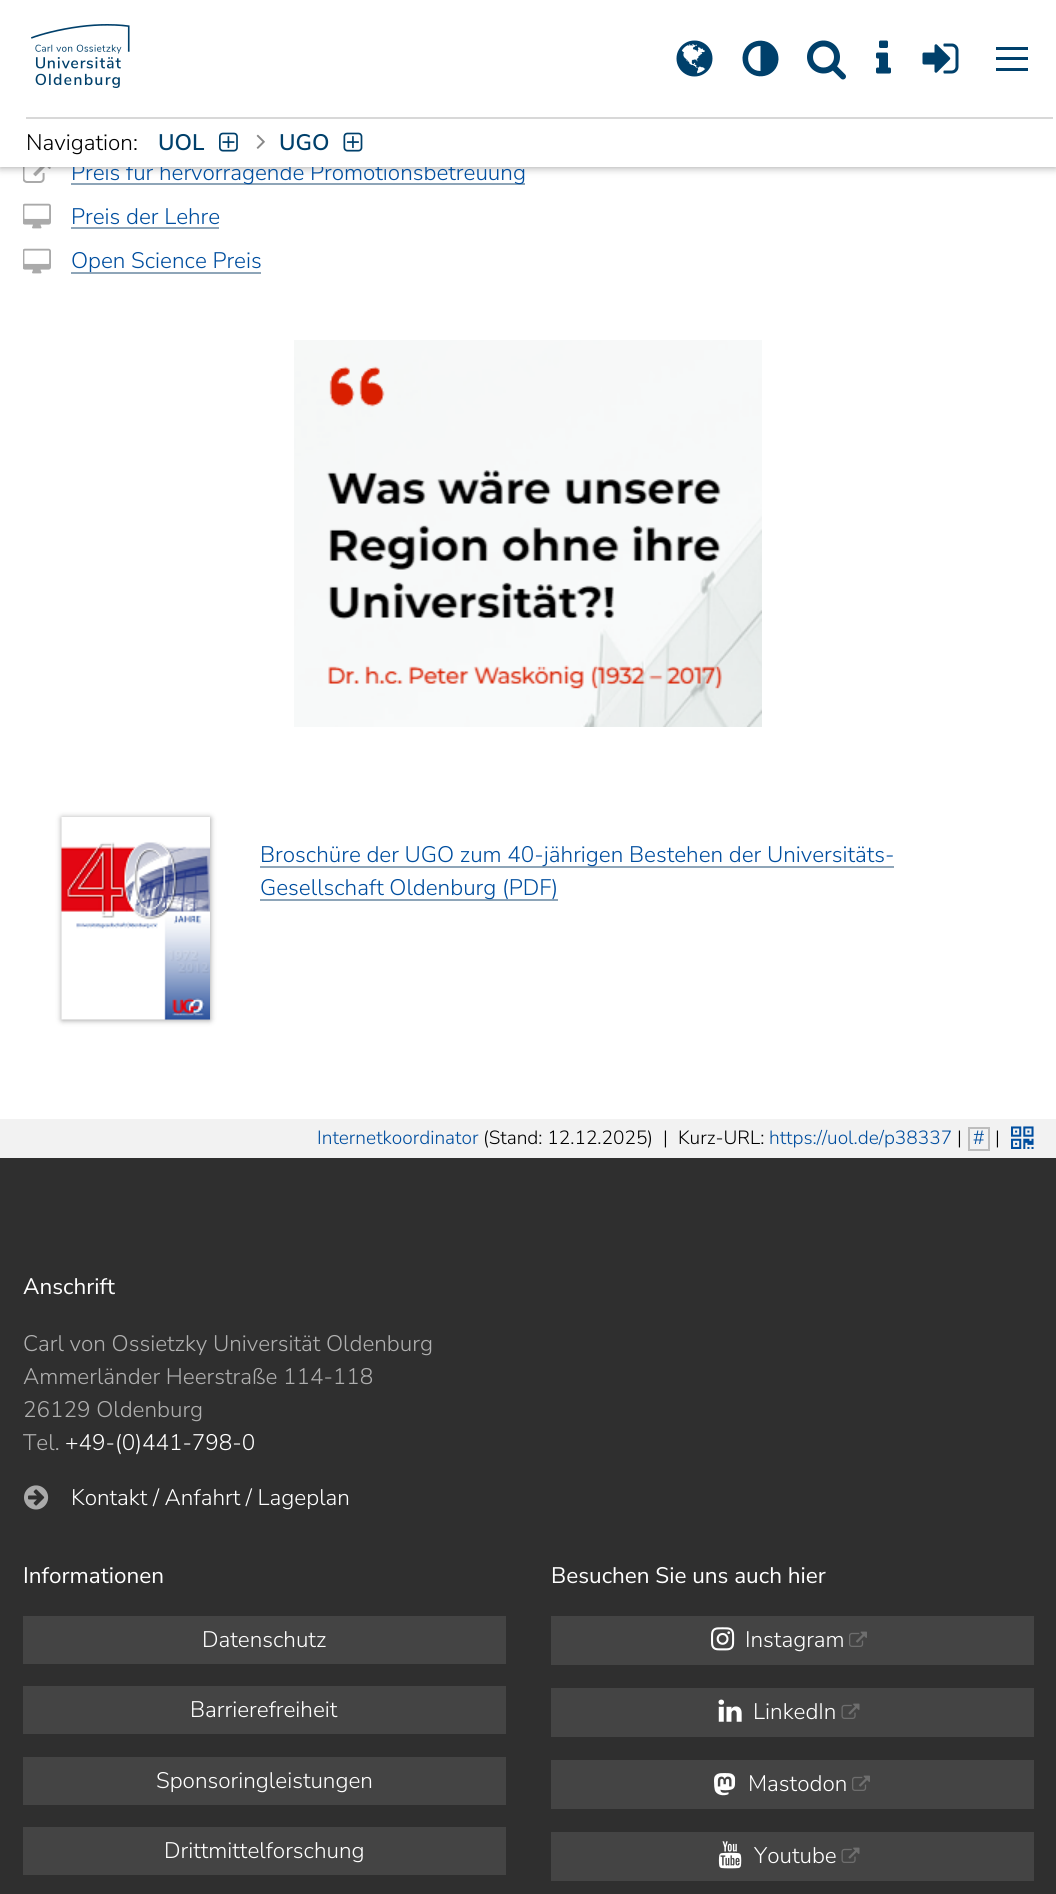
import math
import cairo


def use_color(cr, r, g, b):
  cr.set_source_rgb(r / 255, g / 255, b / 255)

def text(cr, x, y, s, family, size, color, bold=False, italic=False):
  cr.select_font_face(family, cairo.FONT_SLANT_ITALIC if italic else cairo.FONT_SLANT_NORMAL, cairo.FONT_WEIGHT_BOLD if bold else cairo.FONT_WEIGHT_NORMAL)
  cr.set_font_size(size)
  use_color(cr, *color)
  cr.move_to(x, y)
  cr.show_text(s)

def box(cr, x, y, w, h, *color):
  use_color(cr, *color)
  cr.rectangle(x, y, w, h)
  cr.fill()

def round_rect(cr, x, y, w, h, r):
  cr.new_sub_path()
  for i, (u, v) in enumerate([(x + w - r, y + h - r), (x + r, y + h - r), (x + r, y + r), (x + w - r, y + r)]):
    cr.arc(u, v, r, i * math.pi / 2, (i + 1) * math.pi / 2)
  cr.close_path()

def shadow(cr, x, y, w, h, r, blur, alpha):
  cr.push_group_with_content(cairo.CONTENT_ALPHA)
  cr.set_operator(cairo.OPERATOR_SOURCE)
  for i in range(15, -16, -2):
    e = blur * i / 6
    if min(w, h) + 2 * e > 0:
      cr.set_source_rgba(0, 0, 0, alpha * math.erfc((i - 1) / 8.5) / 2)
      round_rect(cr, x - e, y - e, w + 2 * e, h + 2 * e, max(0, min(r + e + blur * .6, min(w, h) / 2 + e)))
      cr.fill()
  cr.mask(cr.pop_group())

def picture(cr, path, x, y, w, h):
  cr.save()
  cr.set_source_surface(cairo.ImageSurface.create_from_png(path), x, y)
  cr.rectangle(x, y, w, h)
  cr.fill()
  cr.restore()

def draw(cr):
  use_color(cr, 255, 255, 255)
  cr.paint()
  picture(cr, "img_09.png", 23, 167, 28, 16)
  use_color(cr, 0, 0, 0)
  shadow(cr, 0, 0, 1056, 167, 0, 4.5, 0.4)
  box(cr, 71, 183, 454, 2, 142, 165, 184)
  picture(cr, "img_10.png", 23, 203, 28, 26)
  box(cr, 71, 227, 148, 2, 142, 165, 184)
  picture(cr, "img_10.png", 23, 248, 28, 26)
  box(cr, 71, 272, 190, 2, 142, 165, 184)
  picture(cr, "img_11.png", 294, 340, 468, 387)
  use_color(cr, 150, 150, 150)
  shadow(cr, 62, 818, 148, 202, 0, 3, 1)
  picture(cr, "img_12.png", 61, 817, 149, 203)
  box(cr, 260, 866, 634, 2, 142, 165, 184)
  box(cr, 260, 899, 298, 2, 142, 165, 184)
  box(cr, 0, 1119, 1056, 39, 242, 242, 242)
  cr.rectangle(969, 1128, 20, 22)
  use_color(cr, 189, 189, 189)
  cr.stroke()
  picture(cr, "img_13.png", 1011, 1126, 23, 23)
  box(cr, 0, 1158, 1056, 736, 47, 47, 47)
  picture(cr, "img_14.png", 24, 1485, 25, 25)
  box(cr, 23, 1616, 483, 48, 68, 68, 68)
  box(cr, 23, 1686, 483, 48, 68, 68, 68)
  box(cr, 23, 1757, 483, 48, 68, 68, 68)
  box(cr, 23, 1827, 483, 48, 68, 68, 68)
  box(cr, 551, 1616, 483, 49, 68, 68, 68)
  picture(cr, "img_15.png", 711, 1627, 24, 24)
  picture(cr, "img_16.png", 849, 1631, 18, 16)
  box(cr, 551, 1688, 483, 49, 68, 68, 68)
  picture(cr, "img_17.png", 718, 1699, 24, 23)
  picture(cr, "img_18.png", 841, 1703, 19, 16)
  box(cr, 551, 1760, 483, 49, 68, 68, 68)
  picture(cr, "img_19.png", 714, 1773, 22, 23)
  picture(cr, "img_16.png", 852, 1775, 18, 16)
  box(cr, 551, 1832, 483, 49, 68, 68, 68)
  picture(cr, "img_20.png", 718, 1841, 24, 28)
  picture(cr, "img_18.png", 841, 1847, 19, 16)
  text(cr, 71, 180, "Preis für hervorragende Promotionsbetreuung", "Nunito Sans Light", 22.5, (0, 78, 159))
  box(cr, 0, 0, 1056, 167, 255, 255, 255)
  picture(cr, "img_01.png", 31, 24, 99, 64)
  picture(cr, "img_08.png", 343, 132, 20, 20)
  text(cr, 279, 150, "UGO", "Nunito Sans SemiBold", 22.5, (0, 64, 107))
  picture(cr, "img_06.png", 219, 132, 19, 20)
  picture(cr, "img_07.png", 256, 134, 9, 15)
  text(cr, 158, 150, "UOL", "Nunito Sans SemiBold", 22.5, (0, 64, 107))
  text(cr, 26, 150, "Navigation:", "Nunito Sans Light", 22.5, (0, 0, 0))
  box(cr, 26, 117, 1027, 2, 216, 216, 216)
  box(cr, 996, 47, 32, 3, 0, 64, 107)
  box(cr, 996, 68, 32, 3, 0, 64, 107)
  box(cr, 996, 57, 32, 3, 0, 64, 107)
  picture(cr, "img_05.png", 922, 43, 37, 31)
  picture(cr, "img_04.png", 876, 40, 15, 34)
  picture(cr, "img_03.png", 807, 40, 39, 40)
  cr.new_path()
  cr.move_to(760.5, 71)
  cr.line_to(760.5, 46)
  cr.curve_to(744, 46, 744, 71, 760.5, 71)
  cr.close_path()
  cr.move_to(776, 49.5)
  cr.curve_to(778, 52.5, 778.5, 56, 778.5, 59.5)
  cr.curve_to(777.5, 77.5, 754, 82.5, 745, 67.5)
  cr.curve_to(743, 64.5, 742.5, 61, 742.5, 57.5)
  cr.curve_to(743.5, 39.5, 767, 34.5, 776, 49.5)
  cr.close_path()
  cr.fill()
  picture(cr, "img_02.png", 676, 40, 37, 37)
  text(cr, 71, 224, "Preis der Lehre", "Nunito Sans Light", 22.5, (0, 78, 159))
  text(cr, 71, 268, "Open Science Preis", "Nunito Sans Light", 22.5, (0, 78, 159))
  text(cr, 260, 862, "Broschüre der UGO zum 40-jährigen Bestehen der Universitäts-", "Nunito Sans Light", 22.5, (0, 78, 159))
  text(cr, 260, 895, "Gesellschaft Oldenburg (PDF)", "Nunito Sans Light", 22.5, (0, 78, 159))
  text(cr, 317, 1144, "Internetkoordinator", "Nunito Sans Light", 19.1, (0, 78, 159))
  text(cr, 483, 1144, "(Stand: 12.12.2025)", "Nunito Sans Light", 19.1, (0, 0, 0))
  text(cr, 663, 1144, "|", "Nunito Sans Light", 19.1, (0, 0, 0))
  text(cr, 678, 1144, "Kurz-URL:", "Nunito Sans Light", 19.1, (0, 0, 0))
  text(cr, 769, 1144, "https://uol.de/p38337", "Nunito Sans Light", 19.1, (0, 78, 159))
  text(cr, 957, 1144, "|", "Nunito Sans Light", 19.1, (0, 0, 0))
  text(cr, 973, 1144, "#", "Nunito Sans Light", 19.1, (0, 78, 159))
  text(cr, 995, 1144, "|", "Nunito Sans Light", 19.1, (0, 0, 0))
  text(cr, 23, 1294, "Anschrift", "Nunito Sans", 22.5, (255, 255, 255))
  text(cr, 23, 1351, "Carl von Ossietzky Universität Oldenburg", "Nunito Sans Light", 22.5, (175, 175, 175))
  text(cr, 23, 1384, "Ammerländer Heerstraße 114-118", "Nunito Sans Light", 22.5, (175, 175, 175))
  text(cr, 23, 1417, "26129 Oldenburg", "Nunito Sans Light", 22.5, (175, 175, 175))
  text(cr, 23, 1450, "Tel.", "Nunito Sans Light", 22.5, (175, 175, 175))
  text(cr, 65, 1450, "+49-(0)441-798-0", "Nunito Sans Light", 22.5, (255, 255, 255))
  text(cr, 71, 1505, "Kontakt / Anfahrt / Lageplan", "Nunito Sans Light", 22.5, (255, 255, 255))
  text(cr, 23, 1583, "Informationen", "Nunito Sans", 22.5, (255, 255, 255))
  text(cr, 202, 1647, "Datenschutz", "Nunito Sans Light", 22.5, (255, 255, 255))
  text(cr, 190, 1717, "Barrierefreiheit", "Nunito Sans Light", 22.5, (255, 255, 255))
  text(cr, 156, 1788, "Sponsoringleistungen", "Nunito Sans Light", 22.5, (255, 255, 255))
  text(cr, 164, 1858, "Drittmittelforschung", "Nunito Sans Light", 22.5, (255, 255, 255))
  text(cr, 551, 1583, "Besuchen Sie uns auch hier", "Nunito Sans", 22.5, (255, 255, 255))
  text(cr, 745, 1647, "Instagram", "Nunito Sans Light", 22.5, (255, 255, 255))
  text(cr, 753, 1719, "LinkedIn", "Nunito Sans Light", 22.5, (255, 255, 255))
  text(cr, 748, 1791, "Mastodon", "Nunito Sans Light", 22.5, (255, 255, 255))
  text(cr, 754, 1863, "Youtube", "Nunito Sans Light", 22.5, (255, 255, 255))


surface = cairo.ImageSurface(cairo.FORMAT_RGB24, 1056, 1894)
cr = cairo.Context(surface)
options = cairo.FontOptions()
options.set_hint_metrics(cairo.HINT_METRICS_OFF)
options.set_hint_style(cairo.HINT_STYLE_NONE)
cr.set_font_options(options)
cr.set_miter_limit(4)
draw(cr)
surface.write_to_png("out.png")
